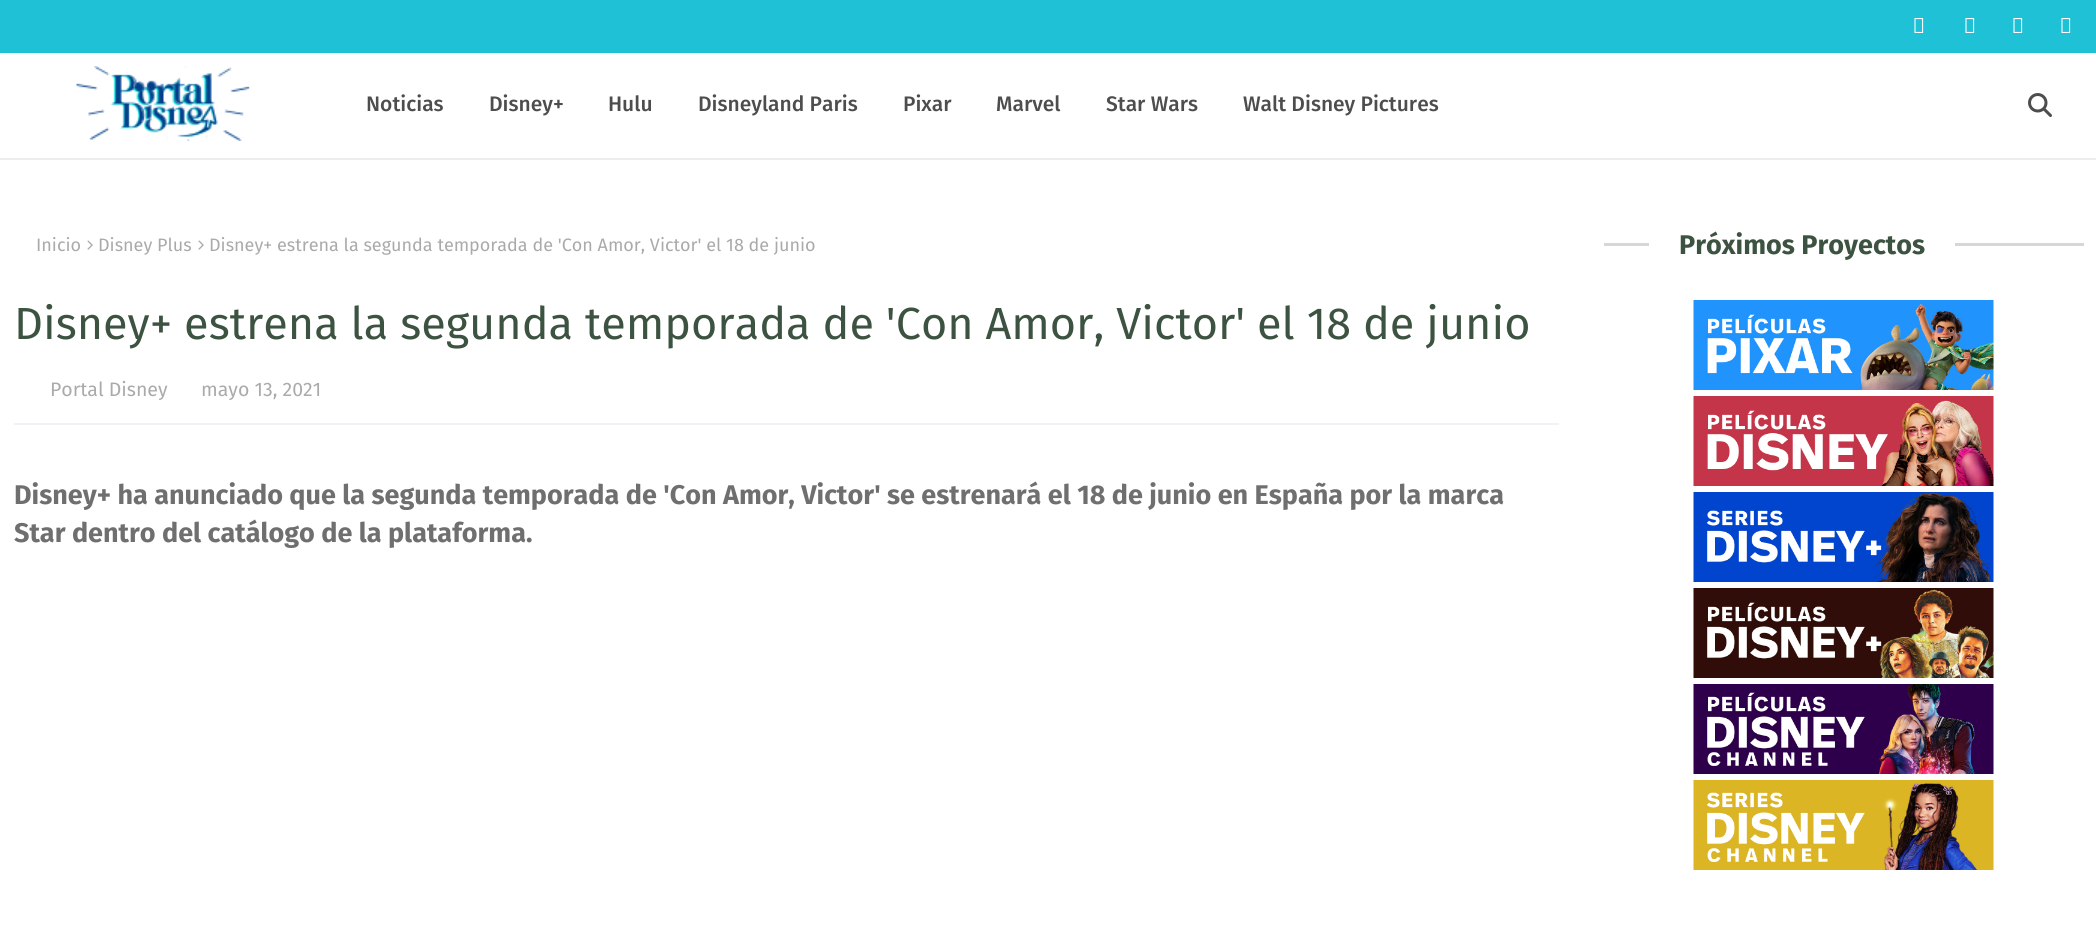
import math
import cairo


def use_color(cr, r, g, b):
  cr.set_source_rgb(r / 255, g / 255, b / 255)

def text(cr, x, y, s, family, size, color, bold=False, italic=False):
  cr.select_font_face(family, cairo.FONT_SLANT_ITALIC if italic else cairo.FONT_SLANT_NORMAL, cairo.FONT_WEIGHT_BOLD if bold else cairo.FONT_WEIGHT_NORMAL)
  cr.set_font_size(size)
  use_color(cr, *color)
  cr.move_to(x, y)
  cr.show_text(s)

def box(cr, x, y, w, h, *color):
  use_color(cr, *color)
  cr.rectangle(x, y, w, h)
  cr.fill()

def picture(cr, path, x, y, w, h):
  cr.save()
  cr.set_source_surface(cairo.ImageSurface.create_from_png(path), x, y)
  cr.rectangle(x, y, w, h)
  cr.fill()
  cr.restore()

def draw(cr):
  use_color(cr, 255, 255, 255)
  cr.paint()
  box(cr, 0, 0, 2096, 53, 31, 193, 214)
  picture(cr, "img_01.png", 1914, 18, 10, 15)
  picture(cr, "img_01.png", 1965, 18, 10, 15)
  picture(cr, "img_01.png", 2013, 18, 10, 15)
  picture(cr, "img_01.png", 2061, 18, 10, 15)
  box(cr, 0, 158, 2096, 2, 236, 236, 236)
  picture(cr, "img_02.png", 76, 66, 174, 75)
  picture(cr, "img_03.png", 2028, 93, 24, 24)
  picture(cr, "img_04.png", 87, 240, 6, 10)
  picture(cr, "img_04.png", 198, 240, 6, 10)
  box(cr, 14, 423, 1545, 2, 242, 242, 246)
  box(cr, 1604, 243, 45, 3, 215, 215, 215)
  box(cr, 1955, 243, 129, 3, 215, 215, 215)
  picture(cr, "img_05.png", 1693, 300, 301, 90)
  picture(cr, "img_06.png", 1693, 396, 301, 90)
  picture(cr, "img_07.png", 1693, 492, 301, 90)
  picture(cr, "img_08.png", 1693, 588, 301, 90)
  picture(cr, "img_09.png", 1693, 684, 301, 90)
  picture(cr, "img_10.png", 1693, 780, 301, 90)
  text(cr, 366, 111, "Noticias", "Fira Sans Medium", 21, (77, 77, 77))
  text(cr, 489, 111, "Disney+", "Fira Sans Medium", 21, (77, 77, 77))
  text(cr, 608, 111, "Hulu", "Fira Sans Medium", 21, (77, 77, 77))
  text(cr, 698, 111, "Disneyland Paris", "Fira Sans Medium", 21, (77, 77, 77))
  text(cr, 903, 111, "Pixar", "Fira Sans Medium", 21, (77, 77, 77))
  text(cr, 996, 111, "Marvel", "Fira Sans Medium", 21, (77, 77, 77))
  text(cr, 1106, 111, "Star Wars", "Fira Sans Medium", 21, (77, 77, 77))
  text(cr, 1243, 111, "Walt Disney Pictures", "Fira Sans Medium", 21, (77, 77, 77))
  text(cr, 36, 251, "Inicio", "Fira Sans", 18, (170, 170, 170))
  text(cr, 98, 251, "Disney Plus", "Fira Sans", 18, (170, 170, 170))
  text(cr, 209, 251, "Disney+ estrena la segunda temporada de 'Con Amor, Victor' el 18 de junio", "Fira Sans", 18, (170, 170, 170))
  text(cr, 14, 339, "Disney+ estrena la segunda temporada de 'Con Amor, Victor' el 18 de junio", "Fira Sans", 45, (61, 83, 65))
  text(cr, 50, 396, "Portal Disney", "Fira Sans", 19.5, (170, 170, 170))
  text(cr, 201, 396, "mayo 13, 2021", "Fira Sans", 19.5, (170, 170, 170))
  text(cr, 14, 504, "Disney+ ha anunciado que la segunda temporada de 'Con Amor, Victor' se estrenará el 18 de junio en España por la marca", "Fira Sans", 27, (111, 111, 111), bold=True)
  text(cr, 14, 542, "Star dentro del catálogo de la plataforma.", "Fira Sans", 27, (111, 111, 111), bold=True)
  text(cr, 1679, 254, "Próximos Proyectos", "Fira Sans", 27, (61, 83, 65), bold=True)


surface = cairo.ImageSurface(cairo.FORMAT_RGB24, 2096, 945)
cr = cairo.Context(surface)
options = cairo.FontOptions()
options.set_hint_metrics(cairo.HINT_METRICS_OFF)
options.set_hint_style(cairo.HINT_STYLE_NONE)
cr.set_font_options(options)
cr.set_miter_limit(4)
draw(cr)
surface.write_to_png("out.png")
